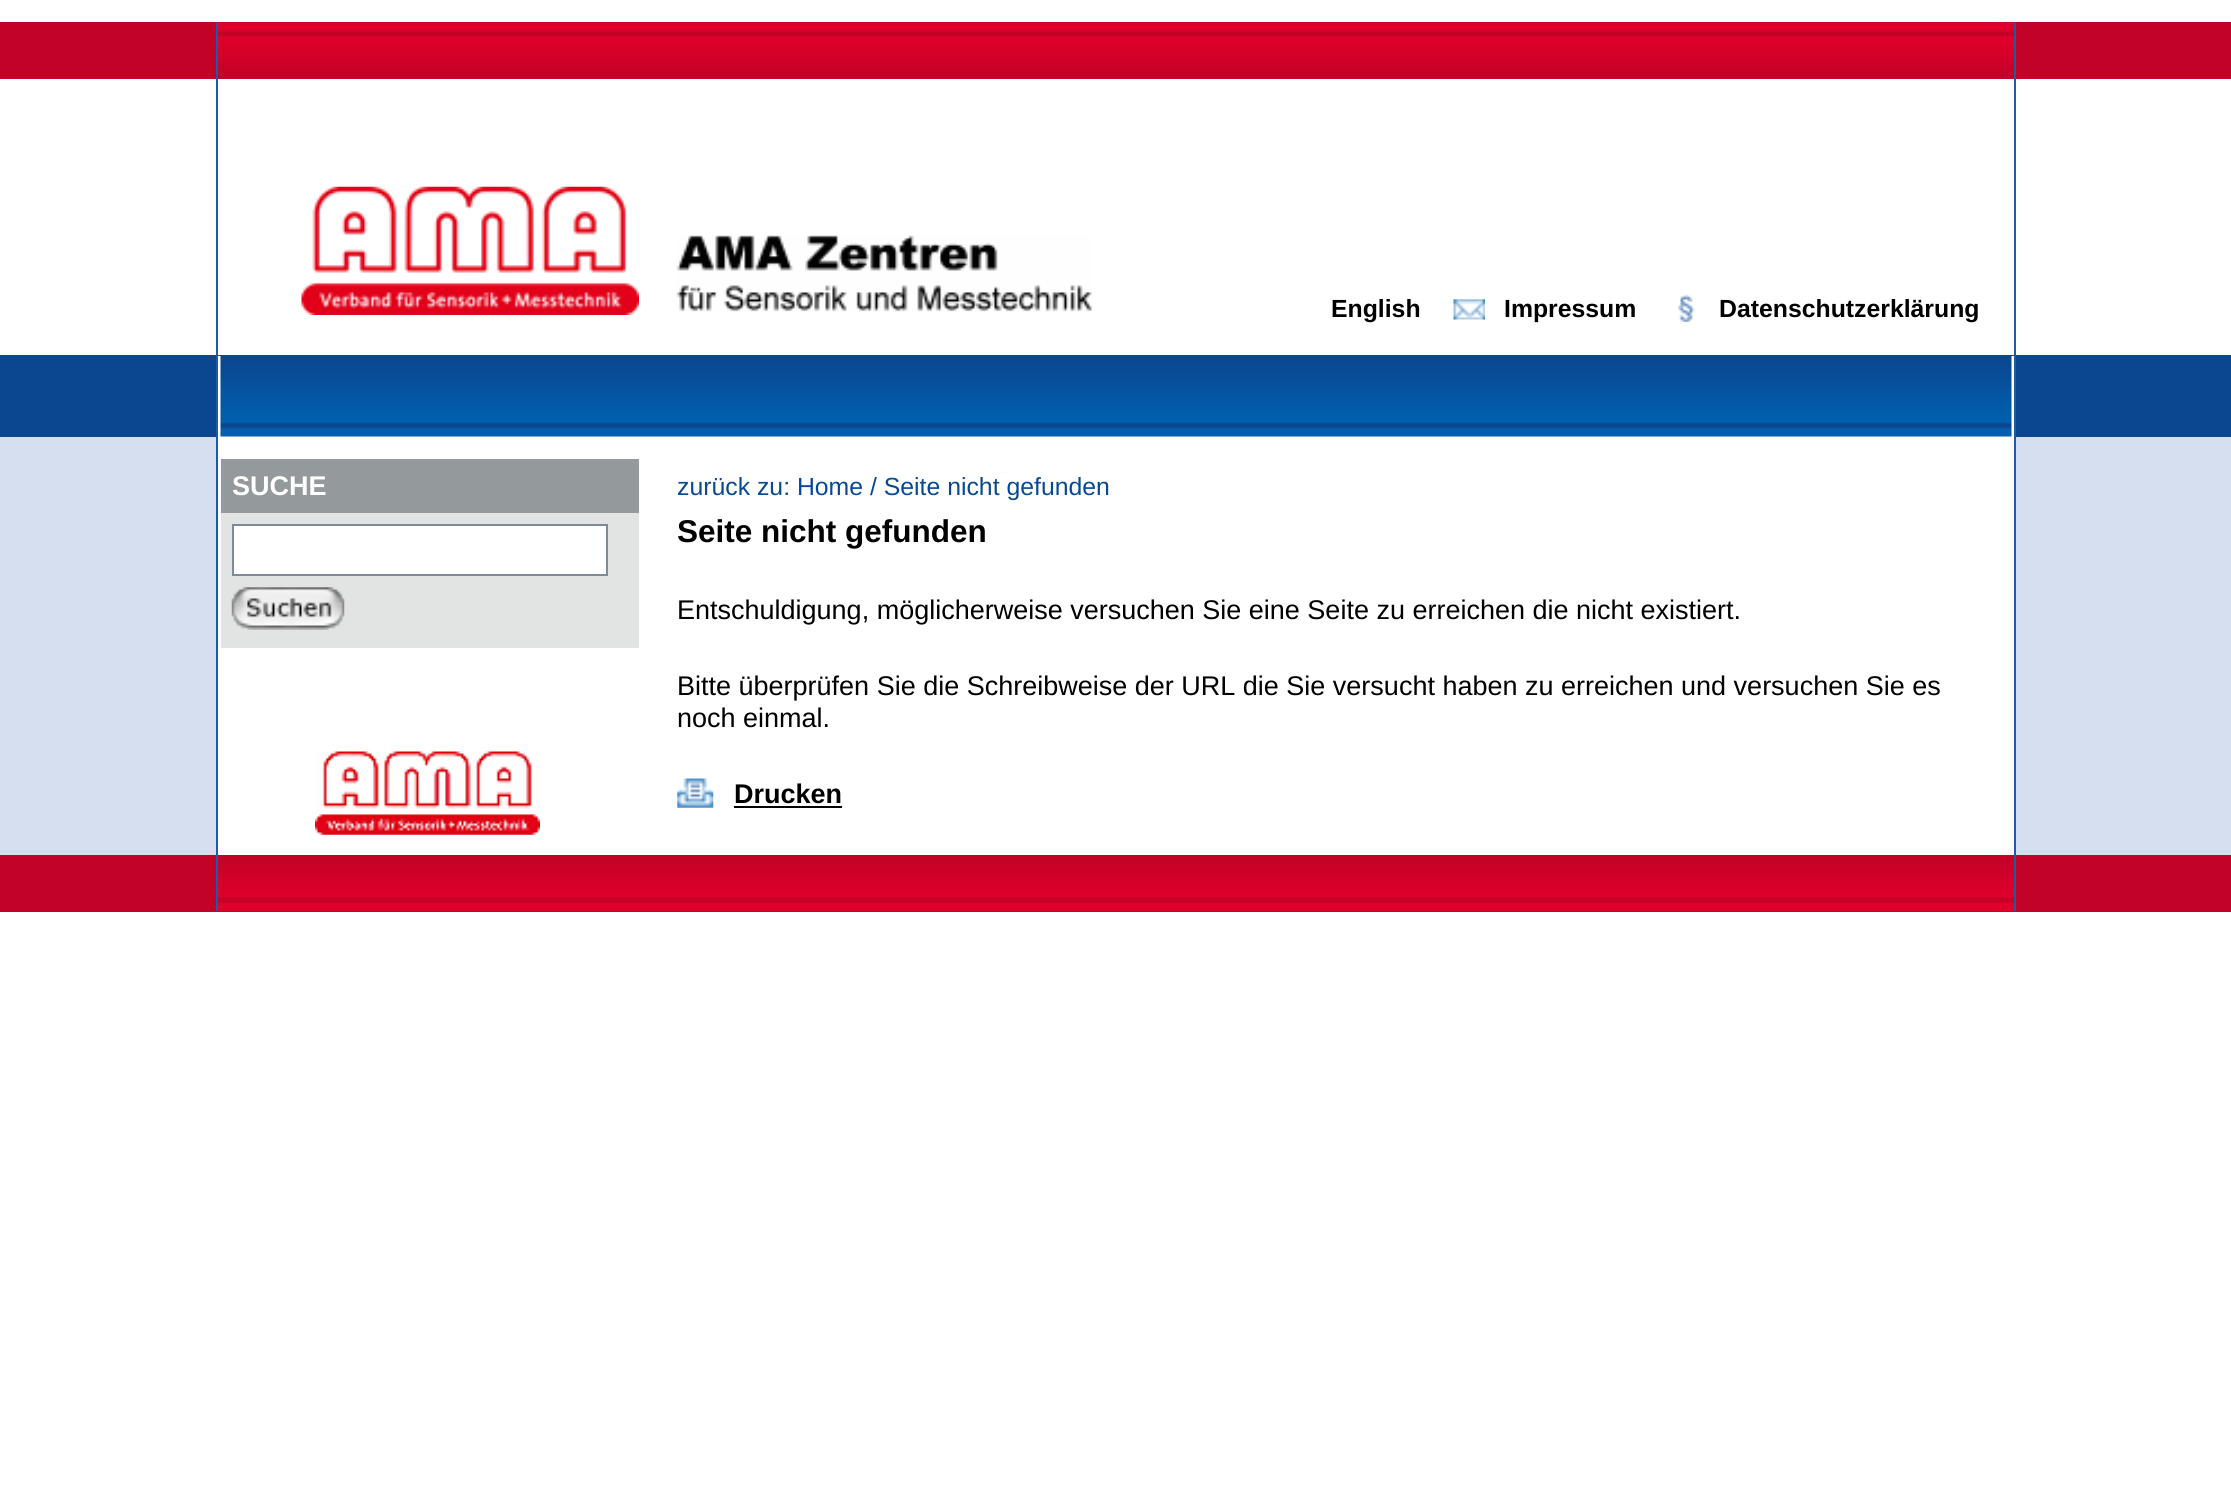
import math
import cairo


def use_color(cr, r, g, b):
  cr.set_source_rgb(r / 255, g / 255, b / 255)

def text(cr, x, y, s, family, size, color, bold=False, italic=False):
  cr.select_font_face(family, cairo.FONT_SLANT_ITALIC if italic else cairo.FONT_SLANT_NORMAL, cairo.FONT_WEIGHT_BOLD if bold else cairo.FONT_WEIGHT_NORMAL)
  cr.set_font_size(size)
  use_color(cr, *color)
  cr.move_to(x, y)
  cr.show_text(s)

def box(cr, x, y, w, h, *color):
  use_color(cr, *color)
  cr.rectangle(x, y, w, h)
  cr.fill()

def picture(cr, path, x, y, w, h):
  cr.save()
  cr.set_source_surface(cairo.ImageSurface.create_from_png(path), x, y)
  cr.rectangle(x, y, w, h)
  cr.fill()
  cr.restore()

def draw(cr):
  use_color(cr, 255, 255, 255)
  cr.paint()
  box(cr, 0, 22, 2231, 57, 195, 2, 39)
  picture(cr, "img_01.png", 216, 22, 1800, 49)
  box(cr, 0, 437, 2231, 418, 214, 223, 239)
  box(cr, 0, 355, 2231, 82, 11, 71, 145)
  box(cr, 2014, 23, 2, 832, 33, 89, 165)
  box(cr, 216, 23, 2, 832, 33, 89, 165)
  picture(cr, "img_02.png", 301, 186, 338, 129)
  picture(cr, "img_03.png", 676, 235, 416, 77)
  picture(cr, "img_04.png", 1453, 299, 32, 21)
  picture(cr, "img_05.png", 1678, 294, 17, 28)
  box(cr, 218, 356, 1796, 499, 255, 255, 255)
  picture(cr, "img_06.png", 220, 356, 1792, 81)
  box(cr, 221, 513, 418, 135, 226, 227, 227)
  box(cr, 221, 459, 418, 54, 148, 154, 156)
  use_color(cr, 255, 255, 255)
  cr.rectangle(233, 525, 374, 50)
  cr.fill_preserve()
  use_color(cr, 127, 138, 152)
  cr.stroke()
  picture(cr, "img_07.png", 231, 587, 114, 43)
  picture(cr, "img_08.png", 315, 751, 225, 84)
  picture(cr, "img_09.png", 677, 778, 37, 30)
  box(cr, 734, 806, 108, 2, 0, 0, 0)
  box(cr, 0, 855, 2231, 57, 195, 2, 39)
  picture(cr, "img_10.png", 216, 855, 1800, 57)
  box(cr, 2014, 855, 2, 56, 33, 89, 165)
  box(cr, 216, 855, 2, 56, 33, 89, 165)
  text(cr, 1331, 317, "English", "Liberation Sans", 24.8, (0, 0, 0), bold=True)
  text(cr, 1504, 317, "Impressum", "Liberation Sans", 24.8, (0, 0, 0), bold=True)
  text(cr, 1719, 317, "Datenschutzerklärung", "Liberation Sans", 24.8, (0, 0, 0), bold=True)
  text(cr, 232, 495, "SUCHE", "Liberation Sans", 27, (255, 255, 255), bold=True)
  text(cr, 677, 495, "zurück zu: Home / Seite nicht gefunden", "Liberation Sans", 24.8, (8, 73, 148))
  text(cr, 677, 542, "Seite nicht gefunden", "Liberation Sans", 31.5, (0, 0, 0), bold=True)
  text(cr, 677, 619, "Entschuldigung, möglicherweise versuchen Sie eine Seite zu erreichen die nicht existiert.", "Liberation Sans", 27, (0, 0, 0))
  text(cr, 677, 695, "Bitte überprüfen Sie die Schreibweise der URL die Sie versucht haben zu erreichen und versuchen Sie es", "Liberation Sans", 27, (0, 0, 0))
  text(cr, 677, 727, "noch einmal.", "Liberation Sans", 27, (0, 0, 0))
  text(cr, 734, 803, "Drucken", "Liberation Sans", 27, (0, 0, 0), bold=True)


surface = cairo.ImageSurface(cairo.FORMAT_RGB24, 2231, 1488)
cr = cairo.Context(surface)
options = cairo.FontOptions()
options.set_hint_metrics(cairo.HINT_METRICS_OFF)
options.set_hint_style(cairo.HINT_STYLE_NONE)
cr.set_font_options(options)
cr.set_miter_limit(4)
draw(cr)
surface.write_to_png("out.png")
